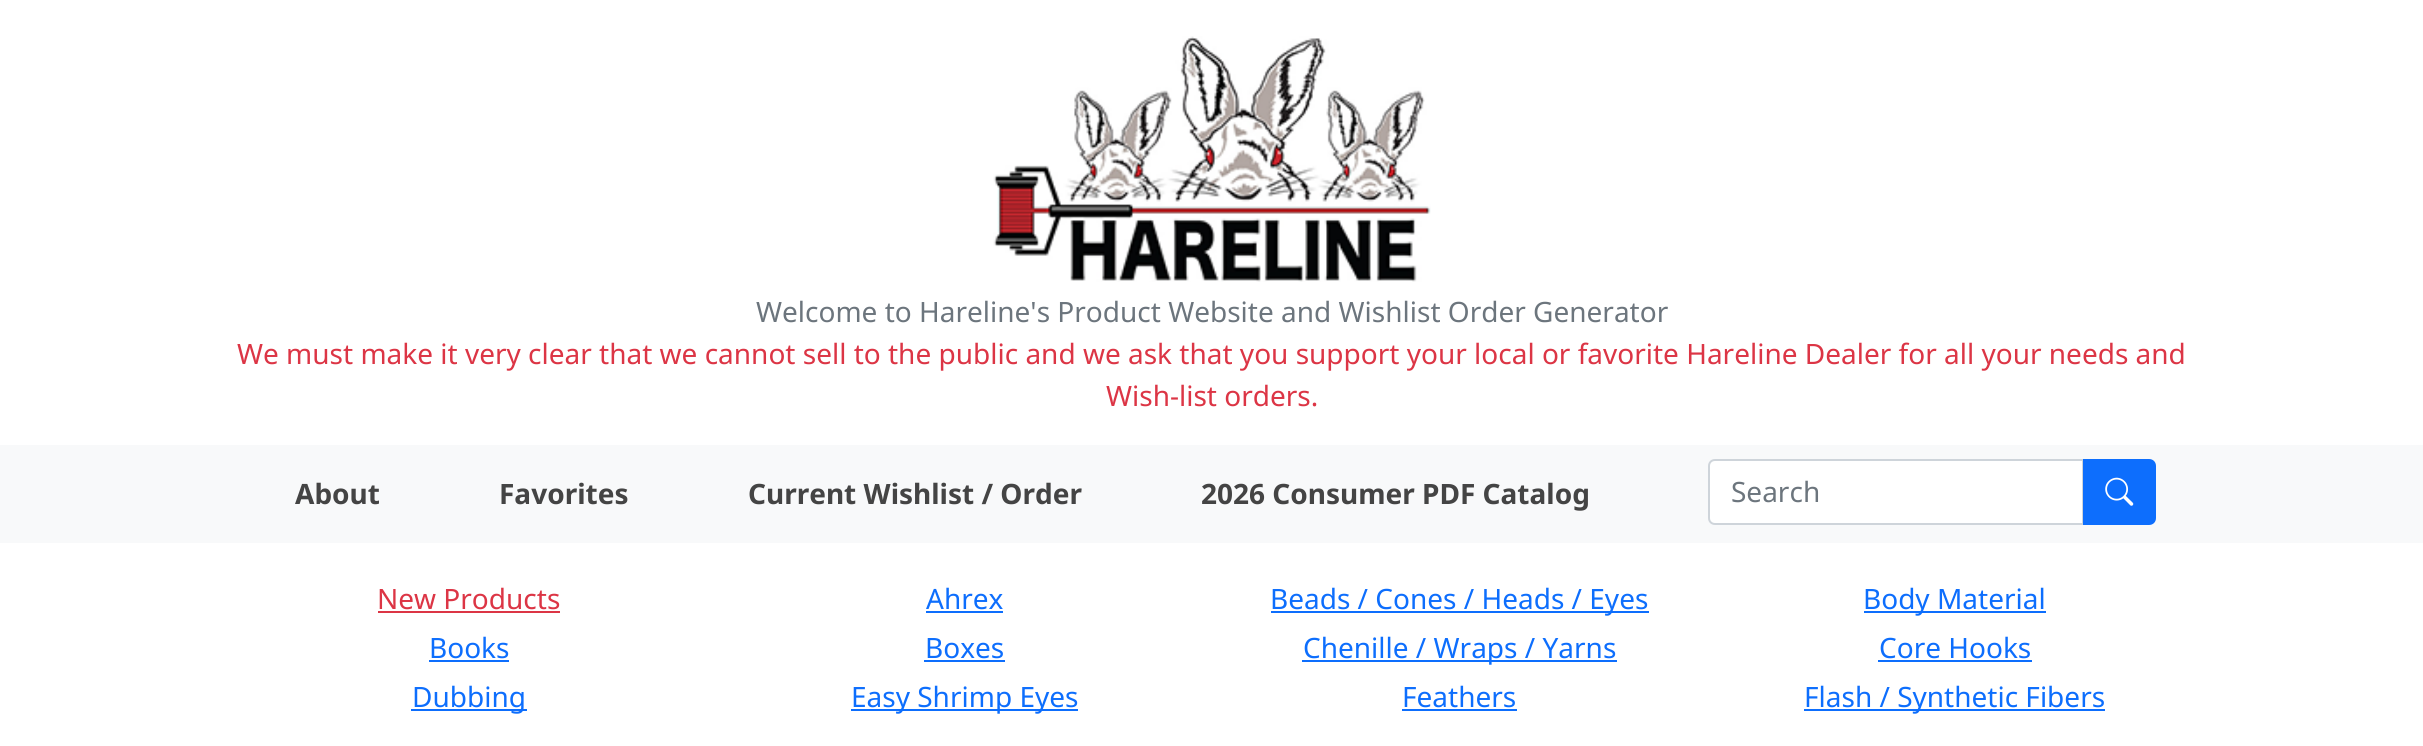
import math
import cairo


def use_color(cr, r, g, b):
  cr.set_source_rgb(r / 255, g / 255, b / 255)

def text(cr, x, y, s, family, size, color, bold=False, italic=False):
  cr.select_font_face(family, cairo.FONT_SLANT_ITALIC if italic else cairo.FONT_SLANT_NORMAL, cairo.FONT_WEIGHT_BOLD if bold else cairo.FONT_WEIGHT_NORMAL)
  cr.set_font_size(size)
  use_color(cr, *color)
  cr.move_to(x, y)
  cr.show_text(s)

def box(cr, x, y, w, h, *color):
  use_color(cr, *color)
  cr.rectangle(x, y, w, h)
  cr.fill()

def picture(cr, path, x, y, w, h):
  cr.save()
  cr.set_source_surface(cairo.ImageSurface.create_from_png(path), x, y)
  cr.rectangle(x, y, w, h)
  cr.fill()
  cr.restore()

def draw(cr):
  use_color(cr, 255, 255, 255)
  cr.paint()
  picture(cr, "img_01.png", 993, 36, 438, 246)
  box(cr, 0, 445, 2423, 98, 248, 249, 250)
  use_color(cr, 255, 255, 255)
  cr.new_path()
  cr.move_to(1715, 460)
  cr.line_to(2083, 460)
  cr.line_to(2083, 524)
  cr.line_to(1715, 524)
  cr.curve_to(1711.5, 524, 1709, 521.5, 1709, 518)
  cr.line_to(1709, 466)
  cr.curve_to(1709, 462.5, 1711.5, 460, 1715, 460)
  cr.close_path()
  cr.fill_preserve()
  use_color(cr, 206, 212, 218)
  cr.stroke()
  use_color(cr, 13, 110, 253)
  cr.new_path()
  cr.move_to(2084, 460)
  cr.line_to(2149, 460)
  cr.curve_to(2152.5, 460, 2155, 462.5, 2155, 466)
  cr.line_to(2155, 518)
  cr.curve_to(2155, 521.5, 2152.5, 524, 2149, 524)
  cr.line_to(2084, 524)
  cr.close_path()
  cr.fill_preserve()
  cr.stroke()
  picture(cr, "img_02.png", 2105, 477, 29, 29)
  box(cr, 378, 611, 182, 2, 220, 53, 69)
  box(cr, 926, 611, 77, 2, 13, 110, 253)
  box(cr, 1271, 611, 378, 2, 13, 110, 253)
  box(cr, 1864, 611, 182, 2, 13, 110, 253)
  box(cr, 429, 660, 80, 2, 13, 110, 253)
  box(cr, 924, 660, 81, 2, 13, 110, 253)
  box(cr, 1302, 660, 315, 2, 13, 110, 253)
  box(cr, 1878, 660, 154, 2, 13, 110, 253)
  box(cr, 411, 709, 116, 2, 13, 110, 253)
  box(cr, 851, 709, 227, 2, 13, 110, 253)
  box(cr, 1402, 709, 115, 2, 13, 110, 253)
  box(cr, 1804, 709, 301, 2, 13, 110, 253)
  text(cr, 756, 322, "Welcome to Hareline's Product Website and Wishlist Order Generator", "Noto Sans", 28, (108, 117, 125))
  text(cr, 237, 364, "We must make it very clear that we cannot sell to the public and we ask that you support your local or favorite Hareline Dealer for all your needs and", "Noto Sans", 28, (220, 53, 69))
  text(cr, 1106, 406, "Wish-list orders.", "Noto Sans", 28, (220, 53, 69))
  text(cr, 295, 504, "About", "Noto Sans", 28, (68, 68, 68), bold=True)
  text(cr, 499, 504, "Favorites", "Noto Sans", 28, (68, 68, 68), bold=True)
  text(cr, 748, 504, "Current Wishlist / Order", "Noto Sans", 28, (68, 68, 68), bold=True)
  text(cr, 1201, 504, "2026 Consumer PDF Catalog", "Noto Sans", 28, (68, 68, 68), bold=True)
  text(cr, 1731, 502, "Search", "Noto Sans", 28, (108, 117, 125))
  text(cr, 377, 609, "New Products", "Noto Sans", 28, (220, 53, 69))
  text(cr, 926, 609, "Ahrex", "Noto Sans", 28, (13, 110, 253))
  text(cr, 1270, 609, "Beads / Cones / Heads / Eyes", "Noto Sans", 28, (13, 110, 253))
  text(cr, 1863, 609, "Body Material", "Noto Sans", 28, (13, 110, 253))
  text(cr, 429, 658, "Books", "Noto Sans", 28, (13, 110, 253))
  text(cr, 925, 658, "Boxes", "Noto Sans", 28, (13, 110, 253))
  text(cr, 1303, 658, "Chenille / Wraps / Yarns", "Noto Sans", 28, (13, 110, 253))
  text(cr, 1879, 658, "Core Hooks", "Noto Sans", 28, (13, 110, 253))
  text(cr, 412, 707, "Dubbing", "Noto Sans", 28, (13, 110, 253))
  text(cr, 851, 707, "Easy Shrimp Eyes", "Noto Sans", 28, (13, 110, 253))
  text(cr, 1402, 707, "Feathers", "Noto Sans", 28, (13, 110, 253))
  text(cr, 1804, 707, "Flash / Synthetic Fibers", "Noto Sans", 28, (13, 110, 253))


surface = cairo.ImageSurface(cairo.FORMAT_RGB24, 2423, 746)
cr = cairo.Context(surface)
options = cairo.FontOptions()
options.set_hint_metrics(cairo.HINT_METRICS_OFF)
options.set_hint_style(cairo.HINT_STYLE_NONE)
cr.set_font_options(options)
cr.set_miter_limit(4)
draw(cr)
surface.write_to_png("out.png")
